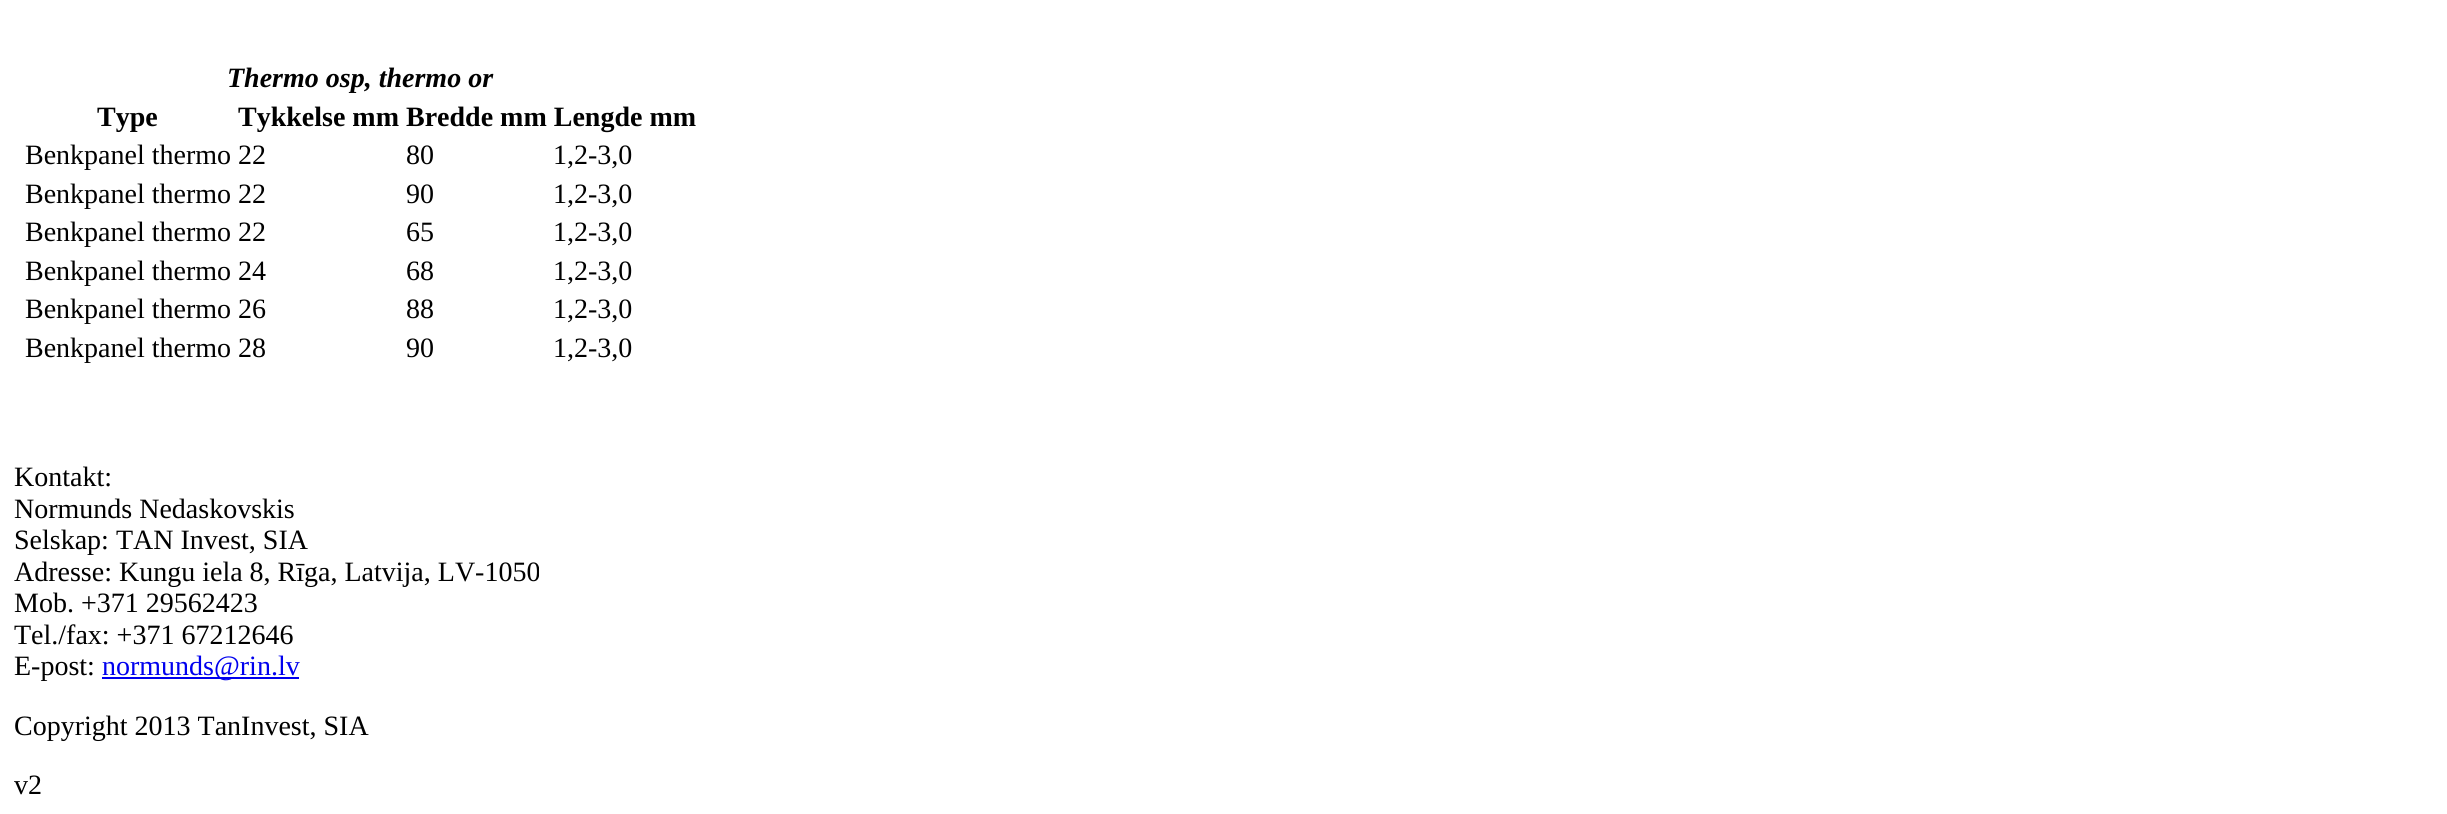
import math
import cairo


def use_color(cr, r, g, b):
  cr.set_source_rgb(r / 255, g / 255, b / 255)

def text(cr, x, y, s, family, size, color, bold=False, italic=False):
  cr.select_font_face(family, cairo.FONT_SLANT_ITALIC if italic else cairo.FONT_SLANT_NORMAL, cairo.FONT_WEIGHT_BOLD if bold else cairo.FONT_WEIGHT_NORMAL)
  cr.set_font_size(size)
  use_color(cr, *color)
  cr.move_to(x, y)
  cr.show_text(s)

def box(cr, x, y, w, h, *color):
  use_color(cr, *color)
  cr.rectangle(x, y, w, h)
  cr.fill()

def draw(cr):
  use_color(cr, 255, 255, 255)
  cr.paint()
  box(cr, 102, 677, 197, 2, 0, 0, 238)
  text(cr, 227, 87, "Thermo osp, thermo or", "Liberation Serif", 28, (0, 0, 0), bold=True, italic=True)
  text(cr, 97, 126, "Type", "Liberation Serif", 28, (0, 0, 0), bold=True)
  text(cr, 238, 126, "Tykkelse mm Bredde mm Lengde mm", "Liberation Serif", 28, (0, 0, 0), bold=True)
  text(cr, 25, 164, "Benkpanel thermo 22", "Liberation Serif", 28, (0, 0, 0))
  text(cr, 406, 164, "80", "Liberation Serif", 28, (0, 0, 0))
  text(cr, 553, 164, "1,2-3,0", "Liberation Serif", 28, (0, 0, 0))
  text(cr, 25, 203, "Benkpanel thermo 22", "Liberation Serif", 28, (0, 0, 0))
  text(cr, 406, 203, "90", "Liberation Serif", 28, (0, 0, 0))
  text(cr, 553, 203, "1,2-3,0", "Liberation Serif", 28, (0, 0, 0))
  text(cr, 25, 241, "Benkpanel thermo 22", "Liberation Serif", 28, (0, 0, 0))
  text(cr, 406, 241, "65", "Liberation Serif", 28, (0, 0, 0))
  text(cr, 553, 241, "1,2-3,0", "Liberation Serif", 28, (0, 0, 0))
  text(cr, 25, 280, "Benkpanel thermo 24", "Liberation Serif", 28, (0, 0, 0))
  text(cr, 406, 280, "68", "Liberation Serif", 28, (0, 0, 0))
  text(cr, 553, 280, "1,2-3,0", "Liberation Serif", 28, (0, 0, 0))
  text(cr, 25, 318, "Benkpanel thermo 26", "Liberation Serif", 28, (0, 0, 0))
  text(cr, 406, 318, "88", "Liberation Serif", 28, (0, 0, 0))
  text(cr, 553, 318, "1,2-3,0", "Liberation Serif", 28, (0, 0, 0))
  text(cr, 25, 357, "Benkpanel thermo 28", "Liberation Serif", 28, (0, 0, 0))
  text(cr, 406, 357, "90", "Liberation Serif", 28, (0, 0, 0))
  text(cr, 553, 357, "1,2-3,0", "Liberation Serif", 28, (0, 0, 0))
  text(cr, 14, 486, "Kontakt:", "Liberation Serif", 28, (0, 0, 0))
  text(cr, 14, 518, "Normunds Nedaskovskis", "Liberation Serif", 28, (0, 0, 0))
  text(cr, 14, 549, "Selskap: TAN Invest, SIA", "Liberation Serif", 28, (0, 0, 0))
  text(cr, 14, 581, "Adresse: Kungu iela 8, Rīga, Latvija, LV-1050", "Liberation Serif", 28, (0, 0, 0))
  text(cr, 14, 612, "Mob. +371 29562423", "Liberation Serif", 28, (0, 0, 0))
  text(cr, 14, 644, "Tel./fax: +371 67212646", "Liberation Serif", 28, (0, 0, 0))
  text(cr, 14, 675, "E-post:", "Liberation Serif", 28, (0, 0, 0))
  text(cr, 102, 675, "normunds@rin.lv", "Liberation Serif", 28, (0, 0, 238))
  text(cr, 14, 735, "Copyright 2013 TanInvest, SIA", "Liberation Serif", 28, (0, 0, 0))
  text(cr, 14, 794, "v2", "Liberation Serif", 28, (0, 0, 0))


surface = cairo.ImageSurface(cairo.FORMAT_RGB24, 2447, 814)
cr = cairo.Context(surface)
options = cairo.FontOptions()
options.set_hint_metrics(cairo.HINT_METRICS_OFF)
options.set_hint_style(cairo.HINT_STYLE_NONE)
cr.set_font_options(options)
cr.set_miter_limit(4)
draw(cr)
surface.write_to_png("out.png")
